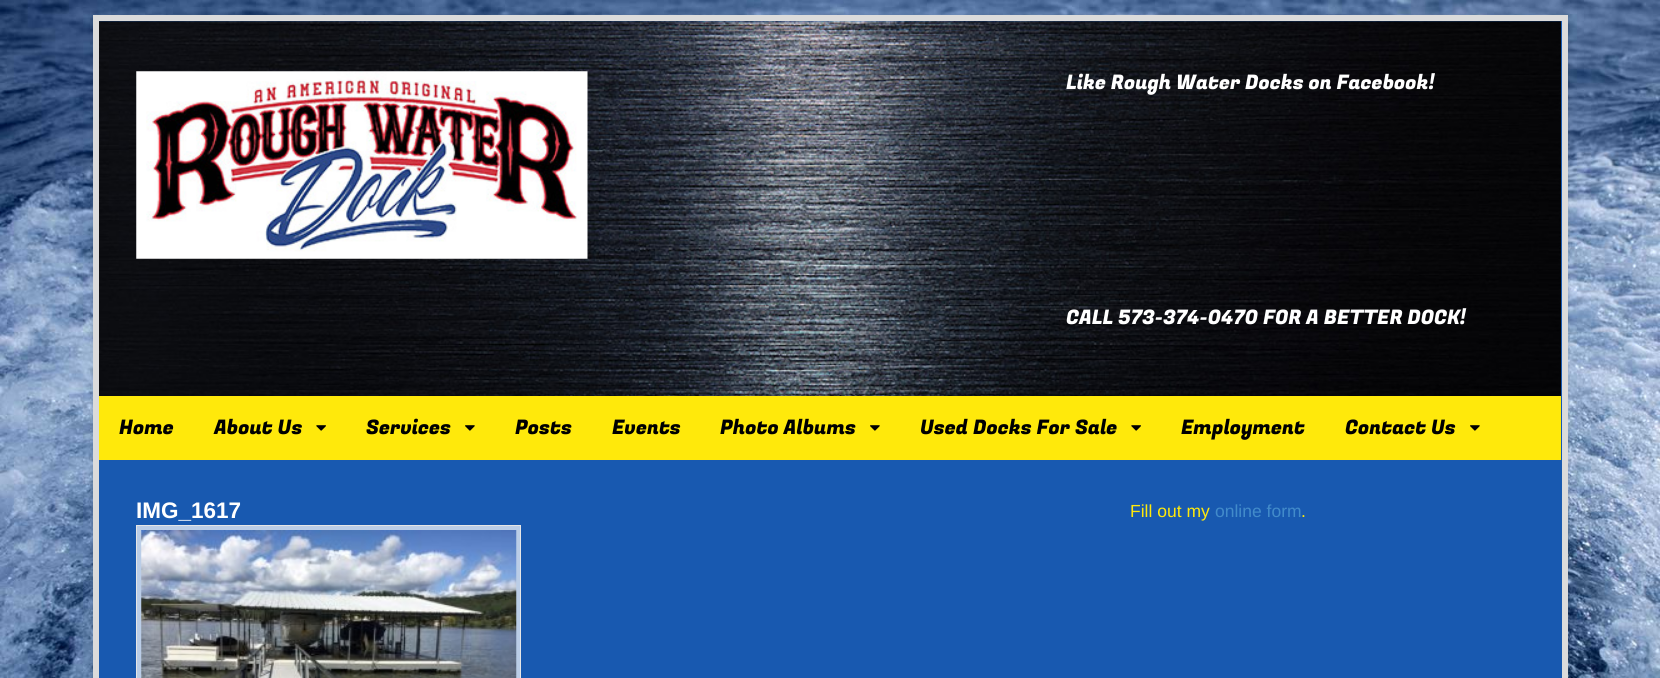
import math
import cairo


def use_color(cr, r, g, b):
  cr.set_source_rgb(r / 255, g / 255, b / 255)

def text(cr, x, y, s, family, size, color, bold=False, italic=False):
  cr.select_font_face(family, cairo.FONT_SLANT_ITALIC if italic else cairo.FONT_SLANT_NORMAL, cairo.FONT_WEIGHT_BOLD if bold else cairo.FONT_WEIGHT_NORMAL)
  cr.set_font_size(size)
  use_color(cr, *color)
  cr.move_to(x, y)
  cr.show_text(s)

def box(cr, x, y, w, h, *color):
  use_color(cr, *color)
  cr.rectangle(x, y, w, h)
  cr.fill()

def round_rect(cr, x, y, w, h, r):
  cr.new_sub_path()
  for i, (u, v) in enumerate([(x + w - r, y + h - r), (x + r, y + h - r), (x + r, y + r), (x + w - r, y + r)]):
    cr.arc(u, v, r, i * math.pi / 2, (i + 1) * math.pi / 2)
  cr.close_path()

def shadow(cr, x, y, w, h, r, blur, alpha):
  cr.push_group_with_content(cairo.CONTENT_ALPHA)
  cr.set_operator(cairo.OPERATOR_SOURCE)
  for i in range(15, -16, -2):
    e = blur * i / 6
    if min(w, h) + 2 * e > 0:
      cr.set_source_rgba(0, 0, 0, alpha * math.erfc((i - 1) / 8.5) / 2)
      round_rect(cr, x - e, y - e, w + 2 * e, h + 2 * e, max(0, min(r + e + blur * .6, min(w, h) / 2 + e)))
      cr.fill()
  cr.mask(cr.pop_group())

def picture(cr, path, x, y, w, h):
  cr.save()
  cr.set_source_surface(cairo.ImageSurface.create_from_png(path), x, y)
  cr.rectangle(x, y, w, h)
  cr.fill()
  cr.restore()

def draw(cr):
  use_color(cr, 255, 255, 255)
  cr.paint()
  picture(cr, "img_01.png", 0, 0, 1660, 678)
  use_color(cr, 0, 0, 0)
  shadow(cr, 93, 16, 1475, 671, 0, 3, 0.1)
  use_color(cr, 24, 89, 176)
  cr.rectangle(96, 18, 1469, 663)
  cr.fill_preserve()
  use_color(cr, 219, 219, 219)
  cr.set_line_width(6)
  cr.stroke()
  picture(cr, "img_02.png", 99, 21, 1462, 375)
  picture(cr, "img_03.png", 136, 71, 452, 188)
  box(cr, 99, 396, 1462, 64, 255, 233, 11)
  picture(cr, "img_04.png", 316, 425, 10, 6)
  picture(cr, "img_05.png", 465, 425, 10, 6)
  picture(cr, "img_05.png", 870, 425, 10, 6)
  picture(cr, "img_04.png", 1131, 425, 10, 6)
  picture(cr, "img_05.png", 1470, 425, 10, 6)
  use_color(cr, 186, 205, 231)
  cr.rectangle(136.5, 525.5, 384, 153)
  cr.fill_preserve()
  use_color(cr, 230, 230, 230)
  cr.set_line_width(1)
  cr.stroke()
  picture(cr, "img_06.png", 141, 530, 376, 148)
  text(cr, 1066, 89, "Like Rough Water Docks on Facebook!", "Fugaz One", 20, (255, 255, 255))
  text(cr, 1066, 324, "CALL 573-374-0470 FOR A BETTER DOCK!", "Fugaz One", 20, (255, 255, 255))
  text(cr, 119, 434, "Home", "Fugaz One", 20, (0, 0, 0))
  text(cr, 214, 434, "About Us", "Fugaz One", 20, (0, 0, 0))
  text(cr, 366, 434, "Services", "Fugaz One", 20, (0, 0, 0))
  text(cr, 515, 434, "Posts", "Fugaz One", 20, (0, 0, 0))
  text(cr, 612, 434, "Events", "Fugaz One", 20, (0, 0, 0))
  text(cr, 720, 434, "Photo Albums", "Fugaz One", 20, (0, 0, 0))
  text(cr, 920, 434, "Used Docks For Sale", "Fugaz One", 20, (0, 0, 0))
  text(cr, 1181, 434, "Employment", "Fugaz One", 20, (0, 0, 0))
  text(cr, 1345, 434, "Contact Us", "Fugaz One", 20, (0, 0, 0))
  text(cr, 136, 518, "IMG_1617", "Liberation Sans", 22.5, (255, 255, 255), bold=True)
  text(cr, 1130, 517, "Fill out my", "Liberation Sans", 17.5, (255, 233, 11))
  text(cr, 1215, 517, "online form", "Liberation Sans", 17.5, (66, 139, 202))
  text(cr, 1301, 517, ".", "Liberation Sans", 17.5, (255, 233, 11))


surface = cairo.ImageSurface(cairo.FORMAT_RGB24, 1660, 678)
cr = cairo.Context(surface)
options = cairo.FontOptions()
options.set_hint_metrics(cairo.HINT_METRICS_OFF)
options.set_hint_style(cairo.HINT_STYLE_NONE)
cr.set_font_options(options)
cr.set_miter_limit(4)
draw(cr)
surface.write_to_png("out.png")
